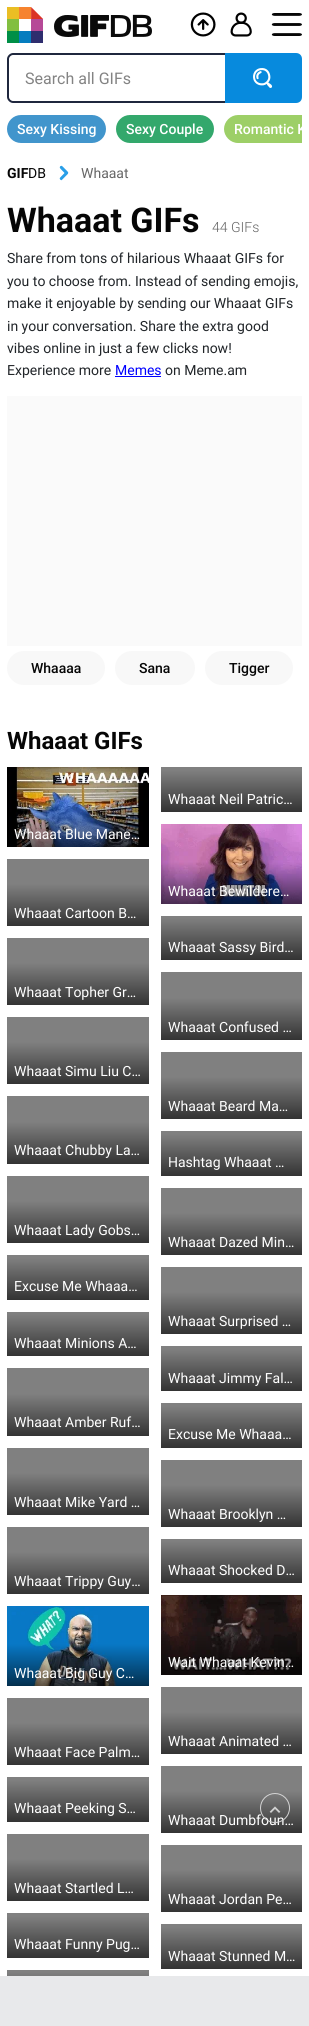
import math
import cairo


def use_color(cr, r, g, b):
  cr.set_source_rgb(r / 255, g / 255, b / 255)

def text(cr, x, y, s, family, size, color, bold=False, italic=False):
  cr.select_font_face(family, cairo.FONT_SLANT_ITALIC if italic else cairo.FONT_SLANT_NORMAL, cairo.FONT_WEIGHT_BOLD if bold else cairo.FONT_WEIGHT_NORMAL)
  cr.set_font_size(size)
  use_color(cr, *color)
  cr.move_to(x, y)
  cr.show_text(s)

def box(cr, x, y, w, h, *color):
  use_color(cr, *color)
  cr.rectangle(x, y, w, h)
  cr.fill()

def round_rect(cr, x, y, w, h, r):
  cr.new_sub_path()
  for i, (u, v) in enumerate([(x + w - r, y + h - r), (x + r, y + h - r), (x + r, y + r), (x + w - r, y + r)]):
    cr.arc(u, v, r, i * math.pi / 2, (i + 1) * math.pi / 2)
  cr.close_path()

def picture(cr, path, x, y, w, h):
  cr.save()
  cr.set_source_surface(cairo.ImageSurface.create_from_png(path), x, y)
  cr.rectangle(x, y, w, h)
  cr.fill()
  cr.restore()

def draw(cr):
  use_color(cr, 255, 255, 255)
  cr.paint()
  picture(cr, "img_01.png", 7, 7, 145, 36)
  picture(cr, "img_02.png", 190, 12, 26, 25)
  picture(cr, "img_03.png", 230, 12, 22, 25)
  picture(cr, "img_04.png", 271, 13, 31, 23)
  use_color(cr, 7, 138, 221)
  cr.new_path()
  cr.move_to(224, 53)
  cr.line_to(296, 53)
  cr.curve_to(299.5, 53, 302, 55.5, 302, 59)
  cr.line_to(302, 97)
  cr.curve_to(302, 100.5, 299.5, 103, 296, 103)
  cr.line_to(224, 103)
  cr.close_path()
  cr.fill()
  use_color(cr, 255, 255, 255)
  cr.new_path()
  cr.move_to(13, 55)
  cr.line_to(225, 55)
  cr.line_to(225, 101)
  cr.line_to(13, 101)
  cr.curve_to(11, 101, 9, 99, 9, 97)
  cr.line_to(9, 59)
  cr.curve_to(9, 57, 11, 55, 13, 55)
  cr.close_path()
  cr.fill()
  use_color(cr, 31, 39, 62)
  cr.set_fill_rule(cairo.FILL_RULE_EVEN_ODD)
  cr.new_path()
  cr.move_to(13, 53)
  cr.line_to(225, 53)
  cr.line_to(225, 103)
  cr.line_to(13, 103)
  cr.curve_to(10, 103, 7, 100, 7, 97)
  cr.line_to(7, 59)
  cr.curve_to(7, 56, 10, 53, 13, 53)
  cr.close_path()
  cr.move_to(13, 55)
  cr.line_to(225, 55)
  cr.line_to(225, 101)
  cr.line_to(13, 101)
  cr.curve_to(11, 101, 9, 99, 9, 97)
  cr.line_to(9, 59)
  cr.curve_to(9, 57, 11, 55, 13, 55)
  cr.close_path()
  cr.fill()
  picture(cr, "img_05.png", 253, 68, 20, 20)
  use_color(cr, 65, 149, 204)
  round_rect(cr, 7, 115, 99, 28, 14)
  cr.fill()
  use_color(cr, 51, 168, 108)
  round_rect(cr, 116, 115, 98, 28, 14)
  cr.fill()
  use_color(cr, 157, 207, 103)
  cr.new_path()
  cr.move_to(238, 115)
  cr.line_to(302, 115)
  cr.line_to(302, 143)
  cr.line_to(238, 143)
  cr.curve_to(230.5, 143, 224, 136.5, 224, 129)
  cr.curve_to(224, 121.5, 230.5, 115, 238, 115)
  cr.close_path()
  cr.fill()
  picture(cr, "img_06.png", 59, 165, 10, 16)
  box(cr, 115, 376, 46, 1, 0, 0, 255)
  box(cr, 7, 396, 295, 250, 250, 250, 250)
  use_color(cr, 248, 248, 248)
  round_rect(cr, 7, 651, 98, 34, 17)
  cr.fill()
  round_rect(cr, 115, 651, 80, 34, 17)
  cr.fill()
  round_rect(cr, 205, 651, 88, 34, 17)
  cr.fill()
  gradient = cairo.LinearGradient(232, 728, 232, 812)
  gradient.add_color_stop_rgba(0, 0.502, 0.502, 0.502, 1)
  gradient.add_color_stop_rgba(0.5, 0.502, 0.502, 0.502, 1)
  gradient.add_color_stop_rgba(1, 0.2, 0.2, 0.2, 1)
  cr.set_source(gradient)
  cr.rectangle(161, 767, 141, 45)
  cr.fill()
  picture(cr, "img_07.png", 7, 767, 142, 80)
  picture(cr, "img_08.png", 161, 824, 141, 80)
  gradient = cairo.LinearGradient(78, 842, 78, 926)
  gradient.add_color_stop_rgba(0, 0.502, 0.502, 0.502, 1)
  gradient.add_color_stop_rgba(0.5, 0.502, 0.502, 0.502, 1)
  gradient.add_color_stop_rgba(1, 0.2, 0.2, 0.2, 1)
  cr.set_source(gradient)
  cr.rectangle(7, 859, 142, 67)
  cr.fill()
  gradient = cairo.LinearGradient(232, 876, 232, 960)
  gradient.add_color_stop_rgba(0, 0.502, 0.502, 0.502, 1)
  gradient.add_color_stop_rgba(0.5, 0.502, 0.502, 0.502, 1)
  gradient.add_color_stop_rgba(1, 0.2, 0.2, 0.2, 1)
  cr.set_source(gradient)
  cr.rectangle(161, 916, 141, 44)
  cr.fill()
  gradient = cairo.LinearGradient(78, 921, 78, 1005)
  gradient.add_color_stop_rgba(0, 0.502, 0.502, 0.502, 1)
  gradient.add_color_stop_rgba(0.5, 0.502, 0.502, 0.502, 1)
  gradient.add_color_stop_rgba(1, 0.2, 0.2, 0.2, 1)
  cr.set_source(gradient)
  cr.rectangle(7, 938, 142, 67)
  cr.fill()
  gradient = cairo.LinearGradient(232, 956, 232, 1040)
  gradient.add_color_stop_rgba(0, 0.502, 0.502, 0.502, 1)
  gradient.add_color_stop_rgba(0.5, 0.502, 0.502, 0.502, 1)
  gradient.add_color_stop_rgba(1, 0.2, 0.2, 0.2, 1)
  cr.set_source(gradient)
  cr.rectangle(161, 972, 141, 68)
  cr.fill()
  gradient = cairo.LinearGradient(78, 1000, 78, 1084)
  gradient.add_color_stop_rgba(0, 0.502, 0.502, 0.502, 1)
  gradient.add_color_stop_rgba(0.5, 0.502, 0.502, 0.502, 1)
  gradient.add_color_stop_rgba(1, 0.2, 0.2, 0.2, 1)
  cr.set_source(gradient)
  cr.rectangle(7, 1017, 142, 67)
  cr.fill()
  gradient = cairo.LinearGradient(232, 1035, 232, 1119)
  gradient.add_color_stop_rgba(0, 0.502, 0.502, 0.502, 1)
  gradient.add_color_stop_rgba(0.5, 0.502, 0.502, 0.502, 1)
  gradient.add_color_stop_rgba(1, 0.2, 0.2, 0.2, 1)
  cr.set_source(gradient)
  cr.rectangle(161, 1052, 141, 67)
  cr.fill()
  gradient = cairo.LinearGradient(78, 1080, 78, 1164)
  gradient.add_color_stop_rgba(0, 0.502, 0.502, 0.502, 1)
  gradient.add_color_stop_rgba(0.5, 0.502, 0.502, 0.502, 1)
  gradient.add_color_stop_rgba(1, 0.2, 0.2, 0.2, 1)
  cr.set_source(gradient)
  cr.rectangle(7, 1096, 142, 68)
  cr.fill()
  gradient = cairo.LinearGradient(232, 1092, 232, 1176)
  gradient.add_color_stop_rgba(0, 0.502, 0.502, 0.502, 1)
  gradient.add_color_stop_rgba(0.5, 0.502, 0.502, 0.502, 1)
  gradient.add_color_stop_rgba(1, 0.2, 0.2, 0.2, 1)
  cr.set_source(gradient)
  cr.rectangle(161, 1131, 141, 45)
  cr.fill()
  gradient = cairo.LinearGradient(78, 1159, 78, 1243)
  gradient.add_color_stop_rgba(0, 0.502, 0.502, 0.502, 1)
  gradient.add_color_stop_rgba(0.5, 0.502, 0.502, 0.502, 1)
  gradient.add_color_stop_rgba(1, 0.2, 0.2, 0.2, 1)
  cr.set_source(gradient)
  cr.rectangle(7, 1176, 142, 67)
  cr.fill()
  gradient = cairo.LinearGradient(232, 1171, 232, 1255)
  gradient.add_color_stop_rgba(0, 0.502, 0.502, 0.502, 1)
  gradient.add_color_stop_rgba(0.5, 0.502, 0.502, 0.502, 1)
  gradient.add_color_stop_rgba(1, 0.2, 0.2, 0.2, 1)
  cr.set_source(gradient)
  cr.rectangle(161, 1188, 141, 67)
  cr.fill()
  gradient = cairo.LinearGradient(78, 1216, 78, 1300)
  gradient.add_color_stop_rgba(0, 0.502, 0.502, 0.502, 1)
  gradient.add_color_stop_rgba(0.5, 0.502, 0.502, 0.502, 1)
  gradient.add_color_stop_rgba(1, 0.2, 0.2, 0.2, 1)
  cr.set_source(gradient)
  cr.rectangle(7, 1255, 142, 45)
  cr.fill()
  gradient = cairo.LinearGradient(232, 1250, 232, 1334)
  gradient.add_color_stop_rgba(0, 0.502, 0.502, 0.502, 1)
  gradient.add_color_stop_rgba(0.5, 0.502, 0.502, 0.502, 1)
  gradient.add_color_stop_rgba(1, 0.2, 0.2, 0.2, 1)
  cr.set_source(gradient)
  cr.rectangle(161, 1267, 141, 67)
  cr.fill()
  gradient = cairo.LinearGradient(78, 1272, 78, 1356)
  gradient.add_color_stop_rgba(0, 0.502, 0.502, 0.502, 1)
  gradient.add_color_stop_rgba(0.5, 0.502, 0.502, 0.502, 1)
  gradient.add_color_stop_rgba(1, 0.2, 0.2, 0.2, 1)
  cr.set_source(gradient)
  cr.rectangle(7, 1312, 142, 44)
  cr.fill()
  gradient = cairo.LinearGradient(232, 1307, 232, 1391)
  gradient.add_color_stop_rgba(0, 0.502, 0.502, 0.502, 1)
  gradient.add_color_stop_rgba(0.5, 0.502, 0.502, 0.502, 1)
  gradient.add_color_stop_rgba(1, 0.2, 0.2, 0.2, 1)
  cr.set_source(gradient)
  cr.rectangle(161, 1346, 141, 45)
  cr.fill()
  gradient = cairo.LinearGradient(78, 1352, 78, 1436)
  gradient.add_color_stop_rgba(0, 0.502, 0.502, 0.502, 1)
  gradient.add_color_stop_rgba(0.5, 0.502, 0.502, 0.502, 1)
  gradient.add_color_stop_rgba(1, 0.2, 0.2, 0.2, 1)
  cr.set_source(gradient)
  cr.rectangle(7, 1368, 142, 68)
  cr.fill()
  gradient = cairo.LinearGradient(232, 1364, 232, 1448)
  gradient.add_color_stop_rgba(0, 0.502, 0.502, 0.502, 1)
  gradient.add_color_stop_rgba(0.5, 0.502, 0.502, 0.502, 1)
  gradient.add_color_stop_rgba(1, 0.2, 0.2, 0.2, 1)
  cr.set_source(gradient)
  cr.rectangle(161, 1403, 141, 45)
  cr.fill()
  gradient = cairo.LinearGradient(78, 1431, 78, 1515)
  gradient.add_color_stop_rgba(0, 0.502, 0.502, 0.502, 1)
  gradient.add_color_stop_rgba(0.5, 0.502, 0.502, 0.502, 1)
  gradient.add_color_stop_rgba(1, 0.2, 0.2, 0.2, 1)
  cr.set_source(gradient)
  cr.rectangle(7, 1448, 142, 67)
  cr.fill()
  gradient = cairo.LinearGradient(232, 1443, 232, 1527)
  gradient.add_color_stop_rgba(0, 0.502, 0.502, 0.502, 1)
  gradient.add_color_stop_rgba(0.5, 0.502, 0.502, 0.502, 1)
  gradient.add_color_stop_rgba(1, 0.2, 0.2, 0.2, 1)
  cr.set_source(gradient)
  cr.rectangle(161, 1460, 141, 67)
  cr.fill()
  gradient = cairo.LinearGradient(232, 1499, 232, 1583)
  gradient.add_color_stop_rgba(0, 0.502, 0.502, 0.502, 1)
  gradient.add_color_stop_rgba(0.5, 0.502, 0.502, 0.502, 1)
  gradient.add_color_stop_rgba(1, 0.2, 0.2, 0.2, 1)
  cr.set_source(gradient)
  cr.rectangle(161, 1539, 141, 44)
  cr.fill()
  gradient = cairo.LinearGradient(78, 1510, 78, 1594)
  gradient.add_color_stop_rgba(0, 0.502, 0.502, 0.502, 1)
  gradient.add_color_stop_rgba(0.5, 0.502, 0.502, 0.502, 1)
  gradient.add_color_stop_rgba(1, 0.2, 0.2, 0.2, 1)
  cr.set_source(gradient)
  cr.rectangle(7, 1527, 142, 67)
  cr.fill()
  picture(cr, "img_09.png", 161, 1595, 141, 80)
  picture(cr, "img_10.png", 7, 1606, 142, 80)
  gradient = cairo.LinearGradient(232, 1670, 232, 1754)
  gradient.add_color_stop_rgba(0, 0.502, 0.502, 0.502, 1)
  gradient.add_color_stop_rgba(0.5, 0.502, 0.502, 0.502, 1)
  gradient.add_color_stop_rgba(1, 0.2, 0.2, 0.2, 1)
  cr.set_source(gradient)
  cr.rectangle(161, 1687, 141, 67)
  cr.fill()
  gradient = cairo.LinearGradient(78, 1681, 78, 1765)
  gradient.add_color_stop_rgba(0, 0.502, 0.502, 0.502, 1)
  gradient.add_color_stop_rgba(0.5, 0.502, 0.502, 0.502, 1)
  gradient.add_color_stop_rgba(1, 0.2, 0.2, 0.2, 1)
  cr.set_source(gradient)
  cr.rectangle(7, 1698, 142, 67)
  cr.fill()
  gradient = cairo.LinearGradient(78, 1738, 78, 1822)
  gradient.add_color_stop_rgba(0, 0.502, 0.502, 0.502, 1)
  gradient.add_color_stop_rgba(0.5, 0.502, 0.502, 0.502, 1)
  gradient.add_color_stop_rgba(1, 0.2, 0.2, 0.2, 1)
  cr.set_source(gradient)
  cr.rectangle(7, 1777, 142, 45)
  cr.fill()
  gradient = cairo.LinearGradient(232, 1749, 232, 1833)
  gradient.add_color_stop_rgba(0, 0.502, 0.502, 0.502, 1)
  gradient.add_color_stop_rgba(0.5, 0.502, 0.502, 0.502, 1)
  gradient.add_color_stop_rgba(1, 0.2, 0.2, 0.2, 1)
  cr.set_source(gradient)
  cr.rectangle(161, 1766, 141, 67)
  cr.fill()
  gradient = cairo.LinearGradient(78, 1817, 78, 1901)
  gradient.add_color_stop_rgba(0, 0.502, 0.502, 0.502, 1)
  gradient.add_color_stop_rgba(0.5, 0.502, 0.502, 0.502, 1)
  gradient.add_color_stop_rgba(1, 0.2, 0.2, 0.2, 1)
  cr.set_source(gradient)
  cr.rectangle(7, 1834, 142, 67)
  cr.fill()
  gradient = cairo.LinearGradient(232, 1828, 232, 1912)
  gradient.add_color_stop_rgba(0, 0.502, 0.502, 0.502, 1)
  gradient.add_color_stop_rgba(0.5, 0.502, 0.502, 0.502, 1)
  gradient.add_color_stop_rgba(1, 0.2, 0.2, 0.2, 1)
  cr.set_source(gradient)
  cr.rectangle(161, 1845, 141, 67)
  cr.fill()
  gradient = cairo.LinearGradient(78, 1874, 78, 1958)
  gradient.add_color_stop_rgba(0, 0.502, 0.502, 0.502, 1)
  gradient.add_color_stop_rgba(0.5, 0.502, 0.502, 0.502, 1)
  gradient.add_color_stop_rgba(1, 0.2, 0.2, 0.2, 1)
  cr.set_source(gradient)
  cr.rectangle(7, 1913, 142, 45)
  cr.fill()
  gradient = cairo.LinearGradient(232, 1885, 232, 1969)
  gradient.add_color_stop_rgba(0, 0.502, 0.502, 0.502, 1)
  gradient.add_color_stop_rgba(0.5, 0.502, 0.502, 0.502, 1)
  gradient.add_color_stop_rgba(1, 0.2, 0.2, 0.2, 1)
  cr.set_source(gradient)
  cr.rectangle(161, 1924, 141, 45)
  cr.fill()
  gradient = cairo.LinearGradient(78, 1930, 78, 2014)
  gradient.add_color_stop_rgba(0, 0.502, 0.502, 0.502, 1)
  gradient.add_color_stop_rgba(0.5, 0.502, 0.502, 0.502, 1)
  gradient.add_color_stop_rgba(1, 0.2, 0.2, 0.2, 1)
  cr.set_source(gradient)
  cr.rectangle(7, 1970, 142, 6)
  cr.fill()
  box(cr, 0, 1976, 309, 50, 232, 233, 235)
  text(cr, 25, 84, "Search all GIFs", "Roboto", 16, (131, 131, 131))
  text(cr, 17, 134, "Sexy Kissing", "Roboto Medium", 14, (255, 255, 255))
  text(cr, 126, 134, "Sexy Couple", "Roboto Medium", 14, (255, 255, 255))
  cr.save()
  cr.set_fill_rule(cairo.FILL_RULE_WINDING)
  cr.rectangle(7, 115, 295, 48)
  cr.clip()
  text(cr, 234, 134, "Romantic K", "Roboto Medium", 14, (255, 255, 255))
  cr.restore()
  text(cr, 7, 178, "GIF", "Roboto", 14, (6, 6, 6), bold=True)
  text(cr, 28, 178, "DB", "Roboto", 14, (6, 6, 6))
  text(cr, 81, 178, "Whaaat", "Roboto", 14, (102, 102, 102))
  text(cr, 7, 232, "Whaaat GIFs", "Roboto", 34, (6, 6, 6), bold=True)
  text(cr, 212, 232, "44 GIFs", "Roboto Light", 14, (102, 102, 102))
  text(cr, 7, 263, "Share from tons of hilarious Whaaat GIFs for", "Roboto", 14, (33, 37, 41))
  text(cr, 7, 286, "you to choose from. Instead of sending emojis,", "Roboto", 14, (33, 37, 41))
  text(cr, 7, 308, "make it enjoyable by sending our Whaaat GIFs", "Roboto", 14, (33, 37, 41))
  text(cr, 7, 331, "in your conversation. Share the extra good", "Roboto", 14, (33, 37, 41))
  text(cr, 7, 353, "vibes online in just a few clicks now!", "Roboto", 14, (33, 37, 41))
  text(cr, 7, 375, "Experience more", "Roboto", 14, (33, 37, 41))
  text(cr, 115, 375, "Memes", "Roboto", 14, (0, 0, 255))
  text(cr, 165, 375, "on Meme.am", "Roboto", 14, (33, 37, 41))
  text(cr, 31, 673, "Whaaaa", "Roboto Medium", 14, (6, 6, 6))
  text(cr, 139, 673, "Sana", "Roboto Medium", 14, (6, 6, 6))
  text(cr, 229, 673, "Tigger", "Roboto Medium", 14, (6, 6, 6))
  text(cr, 7, 749, "Whaaat GIFs", "Roboto", 24, (6, 6, 6), bold=True)
  text(cr, 168, 804, "Whaaat Neil Patric…", "Roboto", 14, (255, 255, 255))
  text(cr, 14, 839, "Whaaat Blue Mane…", "Roboto", 14, (255, 255, 255))
  text(cr, 168, 896, "Whaaat Bewildere…", "Roboto", 14, (255, 255, 255))
  text(cr, 14, 918, "Whaaat Cartoon B…", "Roboto", 14, (255, 255, 255))
  text(cr, 168, 952, "Whaaat Sassy Bird…", "Roboto", 14, (255, 255, 255))
  text(cr, 14, 997, "Whaaat Topher Gr…", "Roboto", 14, (255, 255, 255))
  text(cr, 168, 1032, "Whaaat Confused …", "Roboto", 14, (255, 255, 255))
  text(cr, 14, 1076, "Whaaat Simu Liu C…", "Roboto", 14, (255, 255, 255))
  text(cr, 168, 1111, "Whaaat Beard Ma…", "Roboto", 14, (255, 255, 255))
  text(cr, 14, 1155, "Whaaat Chubby La…", "Roboto", 14, (255, 255, 255))
  text(cr, 168, 1167, "Hashtag Whaaat …", "Roboto", 14, (255, 255, 255))
  text(cr, 14, 1235, "Whaaat Lady Gobs…", "Roboto", 14, (255, 255, 255))
  text(cr, 168, 1247, "Whaaat Dazed Min…", "Roboto", 14, (255, 255, 255))
  text(cr, 14, 1291, "Excuse Me Whaaa…", "Roboto", 14, (255, 255, 255))
  text(cr, 168, 1326, "Whaaat Surprised …", "Roboto", 14, (255, 255, 255))
  text(cr, 14, 1348, "Whaaat Minions A…", "Roboto", 14, (255, 255, 255))
  text(cr, 168, 1383, "Whaaat Jimmy Fal…", "Roboto", 14, (255, 255, 255))
  text(cr, 14, 1427, "Whaaat Amber Ruf…", "Roboto", 14, (255, 255, 255))
  text(cr, 168, 1439, "Excuse Me Whaaa…", "Roboto", 14, (255, 255, 255))
  text(cr, 14, 1507, "Whaaat Mike Yard …", "Roboto", 14, (255, 255, 255))
  text(cr, 168, 1519, "Whaaat Brooklyn …", "Roboto", 14, (255, 255, 255))
  text(cr, 168, 1575, "Whaaat Shocked D…", "Roboto", 14, (255, 255, 255))
  text(cr, 14, 1586, "Whaaat Trippy Guy…", "Roboto", 14, (255, 255, 255))
  text(cr, 168, 1667, "Wait Whaaat Kevin…", "Roboto", 14, (255, 255, 255))
  text(cr, 14, 1678, "Whaaat Big Guy C…", "Roboto", 14, (255, 255, 255))
  text(cr, 168, 1746, "Whaaat Animated …", "Roboto", 14, (255, 255, 255))
  text(cr, 14, 1757, "Whaaat Face Palm…", "Roboto", 14, (255, 255, 255))
  text(cr, 14, 1813, "Whaaat Peeking S…", "Roboto", 14, (255, 255, 255))
  text(cr, 168, 1825, "Whaaat Dumbfoun…", "Roboto", 14, (255, 255, 255))
  text(cr, 14, 1893, "Whaaat Startled L…", "Roboto", 14, (255, 255, 255))
  text(cr, 168, 1904, "Whaaat Jordan Pe…", "Roboto", 14, (255, 255, 255))
  text(cr, 14, 1949, "Whaaat Funny Pug…", "Roboto", 14, (255, 255, 255))
  text(cr, 168, 1961, "Whaaat Stunned M…", "Roboto", 14, (255, 255, 255))
  cr.new_path()
  cr.arc(275, 1808, 14.5, 0, 2 * math.pi)
  use_color(cr, 211, 211, 211)
  cr.set_line_width(1)
  cr.stroke()
  picture(cr, "img_11.png", 269, 1806, 12, 7)


surface = cairo.ImageSurface(cairo.FORMAT_RGB24, 309, 2026)
cr = cairo.Context(surface)
options = cairo.FontOptions()
options.set_hint_metrics(cairo.HINT_METRICS_OFF)
options.set_hint_style(cairo.HINT_STYLE_NONE)
cr.set_font_options(options)
cr.set_miter_limit(4)
draw(cr)
surface.write_to_png("out.png")
